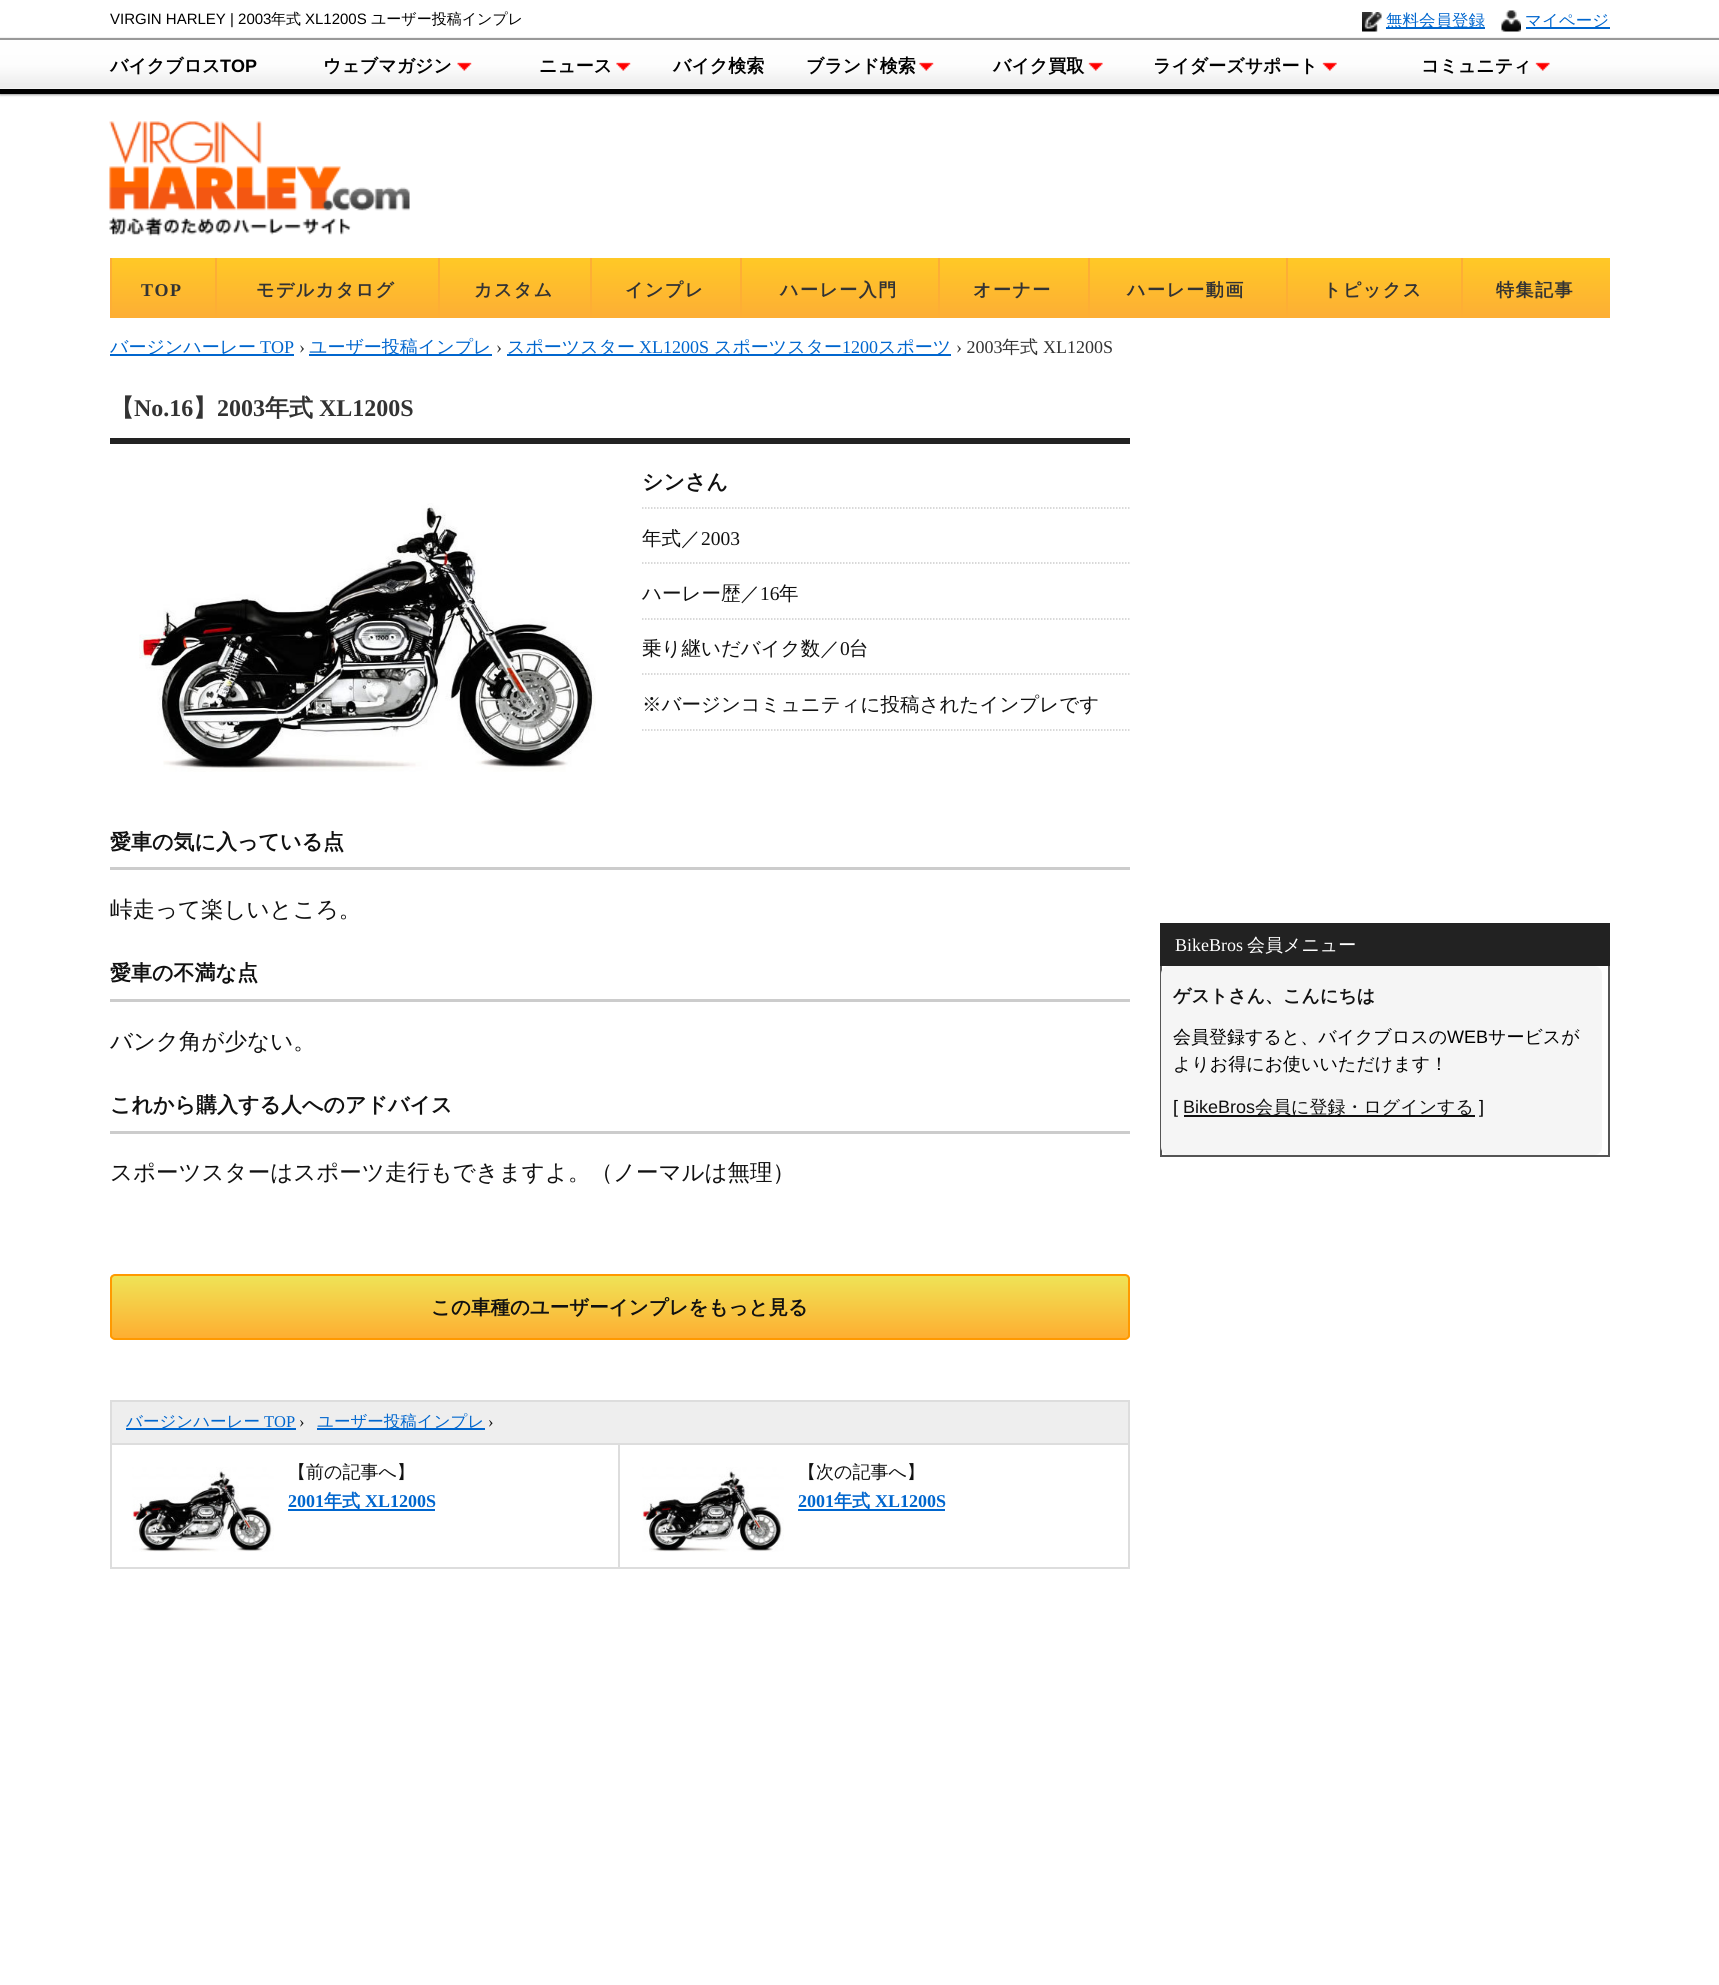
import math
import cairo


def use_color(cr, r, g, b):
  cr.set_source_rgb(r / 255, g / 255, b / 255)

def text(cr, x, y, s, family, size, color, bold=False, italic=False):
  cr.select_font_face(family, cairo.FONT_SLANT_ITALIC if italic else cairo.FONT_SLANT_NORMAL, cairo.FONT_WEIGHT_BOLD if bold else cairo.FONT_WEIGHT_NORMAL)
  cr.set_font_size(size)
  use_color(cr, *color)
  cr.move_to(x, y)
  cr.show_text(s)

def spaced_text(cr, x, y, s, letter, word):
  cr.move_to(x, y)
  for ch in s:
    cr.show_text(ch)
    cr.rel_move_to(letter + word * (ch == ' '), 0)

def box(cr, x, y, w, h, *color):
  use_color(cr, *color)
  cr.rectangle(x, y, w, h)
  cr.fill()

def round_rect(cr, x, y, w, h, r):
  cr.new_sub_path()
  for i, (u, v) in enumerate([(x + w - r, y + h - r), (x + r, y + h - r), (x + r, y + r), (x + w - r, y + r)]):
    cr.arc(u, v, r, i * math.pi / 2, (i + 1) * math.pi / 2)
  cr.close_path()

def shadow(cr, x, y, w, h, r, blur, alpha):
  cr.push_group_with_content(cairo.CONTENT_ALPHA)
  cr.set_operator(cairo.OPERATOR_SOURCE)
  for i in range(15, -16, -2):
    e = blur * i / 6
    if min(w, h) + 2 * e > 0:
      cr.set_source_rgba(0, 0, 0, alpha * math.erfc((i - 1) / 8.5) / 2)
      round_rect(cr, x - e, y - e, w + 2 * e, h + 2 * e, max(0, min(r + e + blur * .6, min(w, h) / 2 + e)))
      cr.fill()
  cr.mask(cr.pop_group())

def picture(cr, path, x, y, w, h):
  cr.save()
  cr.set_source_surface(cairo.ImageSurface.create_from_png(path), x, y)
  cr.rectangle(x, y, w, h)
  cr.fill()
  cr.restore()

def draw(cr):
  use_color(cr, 255, 255, 255)
  cr.paint()
  picture(cr, "img_01.png", 1362, 12, 20, 20)
  box(cr, 1386, 27, 99, 2, 0, 102, 206)
  picture(cr, "img_02.png", 1501, 10, 20, 22)
  box(cr, 1526, 27, 84, 2, 0, 102, 206)
  use_color(cr, 156, 156, 156)
  shadow(cr, 0, 39, 1719, 56, 0, 1, 1)
  picture(cr, "img_03.png", 0, 37, 1719, 52)
  box(cr, 0, 38, 1719, 2, 153, 153, 153)
  box(cr, 0, 89, 1719, 5, 0, 0, 0)
  picture(cr, "img_04.png", 457, 62, 15, 9)
  picture(cr, "img_05.png", 616, 62, 15, 9)
  picture(cr, "img_05.png", 919, 62, 15, 9)
  picture(cr, "img_06.png", 1088, 62, 15, 9)
  picture(cr, "img_07.png", 1322, 62, 15, 9)
  picture(cr, "img_06.png", 1535, 62, 15, 9)
  picture(cr, "img_08.png", 109, 121, 301, 115)
  gradient = cairo.LinearGradient(860, 258, 860, 318)
  gradient.add_color_stop_rgba(0, 1, 0.788, 0.149, 1)
  gradient.add_color_stop_rgba(1, 0.992, 0.682, 0.208, 1)
  cr.set_source(gradient)
  cr.rectangle(112, 258, 1498, 60)
  cr.fill()
  box(cr, 110, 258, 2, 60, 253, 174, 53)
  box(cr, 215, 258, 2, 60, 253, 174, 53)
  box(cr, 438, 258, 2, 60, 253, 174, 53)
  box(cr, 590, 258, 2, 60, 253, 174, 53)
  box(cr, 740, 258, 2, 60, 253, 174, 53)
  box(cr, 938, 258, 2, 60, 253, 174, 53)
  box(cr, 1088, 258, 2, 60, 253, 174, 53)
  box(cr, 1286, 258, 2, 60, 253, 174, 53)
  box(cr, 1461, 258, 2, 60, 253, 174, 53)
  box(cr, 110, 354, 184, 2, 0, 102, 206)
  box(cr, 309, 354, 183, 2, 0, 102, 206)
  box(cr, 507, 354, 444, 2, 0, 102, 206)
  box(cr, 110, 438, 1020, 6, 34, 34, 34)
  picture(cr, "img_09.png", 139, 503, 457, 269)
  cr.new_path()
  cr.move_to(642, 508)
  cr.line_to(1129.5, 508)
  use_color(cr, 204, 204, 204)
  cr.set_line_width(1.5)
  cr.set_dash([1.5, 1.5])
  cr.stroke()
  cr.new_path()
  cr.move_to(642, 563)
  cr.line_to(1129.5, 563)
  cr.stroke()
  cr.new_path()
  cr.move_to(642, 619)
  cr.line_to(1129.5, 619)
  cr.stroke()
  cr.new_path()
  cr.move_to(642, 674)
  cr.line_to(1129.5, 674)
  cr.stroke()
  cr.new_path()
  cr.move_to(642, 730)
  cr.line_to(1129.5, 730)
  cr.stroke()
  box(cr, 110, 867, 1020, 3, 204, 204, 204)
  box(cr, 110, 999, 1020, 3, 204, 204, 204)
  box(cr, 110, 1131, 1020, 3, 204, 204, 204)
  cr.save()
  round_rect(cr, 110, 1274, 1020, 66, 5)
  cr.clip()
  gradient = cairo.LinearGradient(620, 1275, 620, 1338)
  gradient.add_color_stop_rgba(0, 0.937, 0.894, 0.341, 1)
  gradient.add_color_stop_rgba(1, 0.996, 0.682, 0.192, 1)
  cr.set_source(gradient)
  cr.rectangle(110, 1275, 1020, 63)
  cr.fill()
  cr.restore()
  round_rect(cr, 111, 1275, 1018, 64, 4)
  use_color(cr, 255, 153, 0)
  cr.set_line_width(2)
  cr.set_dash([])
  cr.stroke()
  box(cr, 112, 1402, 1016, 41, 238, 238, 238)
  box(cr, 110, 1400, 1020, 2, 221, 221, 221)
  box(cr, 1128, 1400, 2, 43, 221, 221, 221)
  box(cr, 110, 1400, 2, 43, 221, 221, 221)
  box(cr, 126, 1428, 170, 2, 0, 102, 206)
  box(cr, 317, 1428, 168, 2, 0, 102, 206)
  cr.rectangle(111, 1444, 1018, 124)
  use_color(cr, 221, 221, 221)
  cr.stroke()
  box(cr, 618, 1445, 2, 123, 221, 221, 221)
  picture(cr, "img_10.png", 132, 1467, 142, 85)
  box(cr, 288, 1509, 147, 2, 0, 102, 206)
  picture(cr, "img_11.png", 642, 1467, 142, 85)
  box(cr, 798, 1509, 147, 2, 0, 102, 206)
  box(cr, 1160, 923, 450, 43, 34, 34, 34)
  box(cr, 1608, 966, 2, 191, 85, 85, 85)
  box(cr, 1160, 1155, 450, 2, 85, 85, 85)
  box(cr, 1160, 966, 2, 191, 85, 85, 85)
  use_color(cr, 245, 245, 245)
  round_rect(cr, 1161, 966, 441, 189, 8)
  cr.fill()
  box(cr, 1184, 1115, 291, 2, 17, 17, 17)
  text(cr, 110, 24, "VIRGIN HARLEY | 2003", "Liberation Sans", 15, (0, 0, 0))
  text(cr, 271, 24, "年式", "WenQuanYi Zen Hei Medium", 15, (0, 0, 0))
  text(cr, 305, 24, "XL1200S", "Liberation Sans", 15, (0, 0, 0))
  text(cr, 371, 24, "ユーザー投稿インプレ", "WenQuanYi Zen Hei Medium", 15, (0, 0, 0))
  text(cr, 1386, 26, "無料会員登録", "WenQuanYi Zen Hei Medium", 16.5, (0, 102, 206))
  text(cr, 1525, 26, "マイページ", "WenQuanYi Zen Hei Medium", 16.5, (0, 102, 206))
  text(cr, 110, 72, "バイクブロス", "WenQuanYi Zen Hei", 18, (0, 0, 0), bold=True)
  text(cr, 220, 72, "TOP", "Liberation Sans", 18, (0, 0, 0), bold=True)
  text(cr, 323, 72, "ウェブマガジン", "WenQuanYi Zen Hei", 18, (0, 0, 0), bold=True)
  text(cr, 539, 72, "ニュース", "WenQuanYi Zen Hei", 18, (0, 0, 0), bold=True)
  text(cr, 673, 72, "バイク検索", "WenQuanYi Zen Hei", 18, (0, 0, 0), bold=True)
  text(cr, 806, 72, "ブランド検索", "WenQuanYi Zen Hei", 18, (0, 0, 0), bold=True)
  text(cr, 993, 72, "バイク買取", "WenQuanYi Zen Hei", 18, (0, 0, 0), bold=True)
  text(cr, 1153, 72, "ライダーズサポート", "WenQuanYi Zen Hei", 18, (0, 0, 0), bold=True)
  text(cr, 1421, 72, "コミュニティ", "WenQuanYi Zen Hei", 18, (0, 0, 0), bold=True)
  cr.select_font_face("Liberation Serif", cairo.FONT_SLANT_NORMAL, cairo.FONT_WEIGHT_BOLD)
  use_color(cr, 51, 51, 51)
  spaced_text(cr, 141, 296, "TOP", 1.5, 0)
  cr.select_font_face("WenQuanYi Zen Hei", cairo.FONT_SLANT_NORMAL, cairo.FONT_WEIGHT_BOLD)
  spaced_text(cr, 256, 296, "モデルカタログ", 1.5, 0)
  spaced_text(cr, 474, 296, "カスタム", 1.5, 0)
  spaced_text(cr, 625, 296, "インプレ", 1.5, 0)
  spaced_text(cr, 780, 296, "ハーレー入門", 1.5, 0)
  spaced_text(cr, 973, 296, "オーナー", 1.5, 0)
  spaced_text(cr, 1127, 296, "ハーレー動画", 1.5, 0)
  spaced_text(cr, 1323, 296, "トピックス", 1.5, 0)
  spaced_text(cr, 1496, 296, "特集記事", 1.5, 0)
  text(cr, 110, 353, "バージンハーレー", "WenQuanYi Zen Hei Medium", 18, (0, 102, 206))
  text(cr, 260, 353, "TOP", "Liberation Serif", 18, (0, 102, 206))
  text(cr, 299, 353, "›", "Liberation Serif", 18, (51, 51, 51))
  text(cr, 309, 353, "ユーザー投稿インプレ", "WenQuanYi Zen Hei Medium", 18, (0, 102, 206))
  text(cr, 496, 353, "›", "Liberation Serif", 18, (51, 51, 51))
  text(cr, 507, 353, "スポーツスター", "WenQuanYi Zen Hei Medium", 18, (0, 102, 206))
  text(cr, 639, 353, "XL1200S", "Liberation Serif", 18, (0, 102, 206))
  text(cr, 714, 353, "スポーツスター", "WenQuanYi Zen Hei Medium", 18, (0, 102, 206))
  text(cr, 842, 353, "1200", "Liberation Serif", 18, (0, 102, 206))
  text(cr, 878, 353, "スポーツ", "WenQuanYi Zen Hei Medium", 18, (0, 102, 206))
  text(cr, 956, 353, "› 2003", "Liberation Serif", 18, (51, 51, 51))
  text(cr, 1002, 353, "年式", "WenQuanYi Zen Hei Medium", 18, (51, 51, 51))
  text(cr, 1043, 353, "XL1200S", "Liberation Serif", 18, (51, 51, 51))
  text(cr, 110, 416, "【", "WenQuanYi Zen Hei", 24, (51, 51, 51), bold=True)
  text(cr, 134, 416, "No.16", "Liberation Serif", 24, (51, 51, 51), bold=True)
  text(cr, 193, 416, "】", "WenQuanYi Zen Hei", 24, (51, 51, 51), bold=True)
  text(cr, 217, 416, "2003", "Liberation Serif", 24, (51, 51, 51), bold=True)
  text(cr, 265, 416, "年式", "WenQuanYi Zen Hei", 24, (51, 51, 51), bold=True)
  text(cr, 319, 416, "XL1200S", "Liberation Serif", 24, (51, 51, 51), bold=True)
  text(cr, 642, 489, "シンさん", "WenQuanYi Zen Hei", 21, (17, 17, 17), bold=True)
  text(cr, 642, 545, "年式／", "WenQuanYi Zen Hei Medium", 19.5, (17, 17, 17))
  text(cr, 701, 545, "2003", "Liberation Serif", 19.5, (17, 17, 17))
  text(cr, 642, 600, "ハーレー歴／", "WenQuanYi Zen Hei Medium", 19.5, (17, 17, 17))
  text(cr, 760, 600, "16", "Liberation Serif", 19.5, (17, 17, 17))
  text(cr, 779, 600, "年", "WenQuanYi Zen Hei Medium", 19.5, (17, 17, 17))
  text(cr, 642, 655, "乗り継いだバイク数／", "WenQuanYi Zen Hei Medium", 19.5, (17, 17, 17))
  text(cr, 840, 655, "0", "Liberation Serif", 19.5, (17, 17, 17))
  text(cr, 849, 655, "台", "WenQuanYi Zen Hei Medium", 19.5, (17, 17, 17))
  text(cr, 642, 711, "※バージンコミュニティに投稿されたインプレです", "WenQuanYi Zen Hei Medium", 19.5, (17, 17, 17))
  text(cr, 110, 849, "愛車の気に入っている点", "WenQuanYi Zen Hei", 21, (17, 17, 17), bold=True)
  text(cr, 110, 917, "峠走って楽しいところ。", "WenQuanYi Zen Hei Medium", 22.5, (17, 17, 17))
  text(cr, 110, 980, "愛車の不満な点", "WenQuanYi Zen Hei", 21, (17, 17, 17), bold=True)
  text(cr, 110, 1049, "バンク角が少ない。", "WenQuanYi Zen Hei Medium", 22.5, (17, 17, 17))
  text(cr, 110, 1112, "これから購入する人へのアドバイス", "WenQuanYi Zen Hei", 21, (17, 17, 17), bold=True)
  text(cr, 110, 1180, "スポーツスターはスポーツ走行もできますよ。（ノーマルは無理）", "WenQuanYi Zen Hei Medium", 22.5, (17, 17, 17))
  text(cr, 431, 1314, "この車種のユーザーインプレをもっと見る", "WenQuanYi Zen Hei", 19.5, (17, 17, 17), bold=True)
  text(cr, 126, 1427, "バージンハーレー", "WenQuanYi Zen Hei Medium", 16.5, (0, 102, 206))
  text(cr, 264, 1427, "TOP", "Liberation Serif", 16.5, (0, 102, 206))
  text(cr, 299, 1427, "›", "Liberation Serif", 16.5, (17, 17, 17))
  text(cr, 317, 1427, "ユーザー投稿インプレ", "WenQuanYi Zen Hei Medium", 16.5, (0, 102, 206))
  text(cr, 488, 1427, "›", "Liberation Serif", 16.5, (17, 17, 17))
  text(cr, 288, 1478, "【前の記事へ】", "WenQuanYi Zen Hei Medium", 18, (17, 17, 17))
  text(cr, 288, 1507, "2001", "Liberation Serif", 18, (0, 102, 206), bold=True)
  text(cr, 324, 1507, "年式", "WenQuanYi Zen Hei", 18, (0, 102, 206), bold=True)
  text(cr, 365, 1507, "XL1200S", "Liberation Serif", 18, (0, 102, 206), bold=True)
  text(cr, 798, 1478, "【次の記事へ】", "WenQuanYi Zen Hei Medium", 18, (17, 17, 17))
  text(cr, 798, 1507, "2001", "Liberation Serif", 18, (0, 102, 206), bold=True)
  text(cr, 834, 1507, "年式", "WenQuanYi Zen Hei", 18, (0, 102, 206), bold=True)
  text(cr, 875, 1507, "XL1200S", "Liberation Serif", 18, (0, 102, 206), bold=True)
  text(cr, 1175, 951, "BikeBros", "Liberation Serif", 18, (255, 255, 255))
  text(cr, 1247, 951, "会員メニュー", "WenQuanYi Zen Hei Medium", 18, (255, 255, 255))
  text(cr, 1173, 1002, "ゲストさん、こんにちは", "WenQuanYi Zen Hei", 18, (17, 17, 17), bold=True)
  text(cr, 1173, 1043, "会員登録すると、バイクブロスの", "WenQuanYi Zen Hei Medium", 18, (0, 0, 0))
  text(cr, 1447, 1043, "WEB", "Liberation Sans", 18, (0, 0, 0))
  text(cr, 1488, 1043, "サービスが", "WenQuanYi Zen Hei Medium", 18, (0, 0, 0))
  text(cr, 1173, 1070, "よりお得にお使いいただけます！", "WenQuanYi Zen Hei Medium", 18, (0, 0, 0))
  text(cr, 1173, 1113, "[", "Liberation Sans", 18, (0, 0, 0))
  text(cr, 1183, 1113, "BikeBros", "Liberation Sans", 18, (17, 17, 17))
  text(cr, 1255, 1113, "会員に登録・ログインする", "WenQuanYi Zen Hei Medium", 18, (17, 17, 17))
  text(cr, 1479, 1113, "]", "Liberation Sans", 18, (0, 0, 0))


surface = cairo.ImageSurface(cairo.FORMAT_RGB24, 1719, 1985)
cr = cairo.Context(surface)
options = cairo.FontOptions()
options.set_hint_metrics(cairo.HINT_METRICS_OFF)
options.set_hint_style(cairo.HINT_STYLE_NONE)
cr.set_font_options(options)
cr.set_miter_limit(4)
draw(cr)
surface.write_to_png("out.png")
